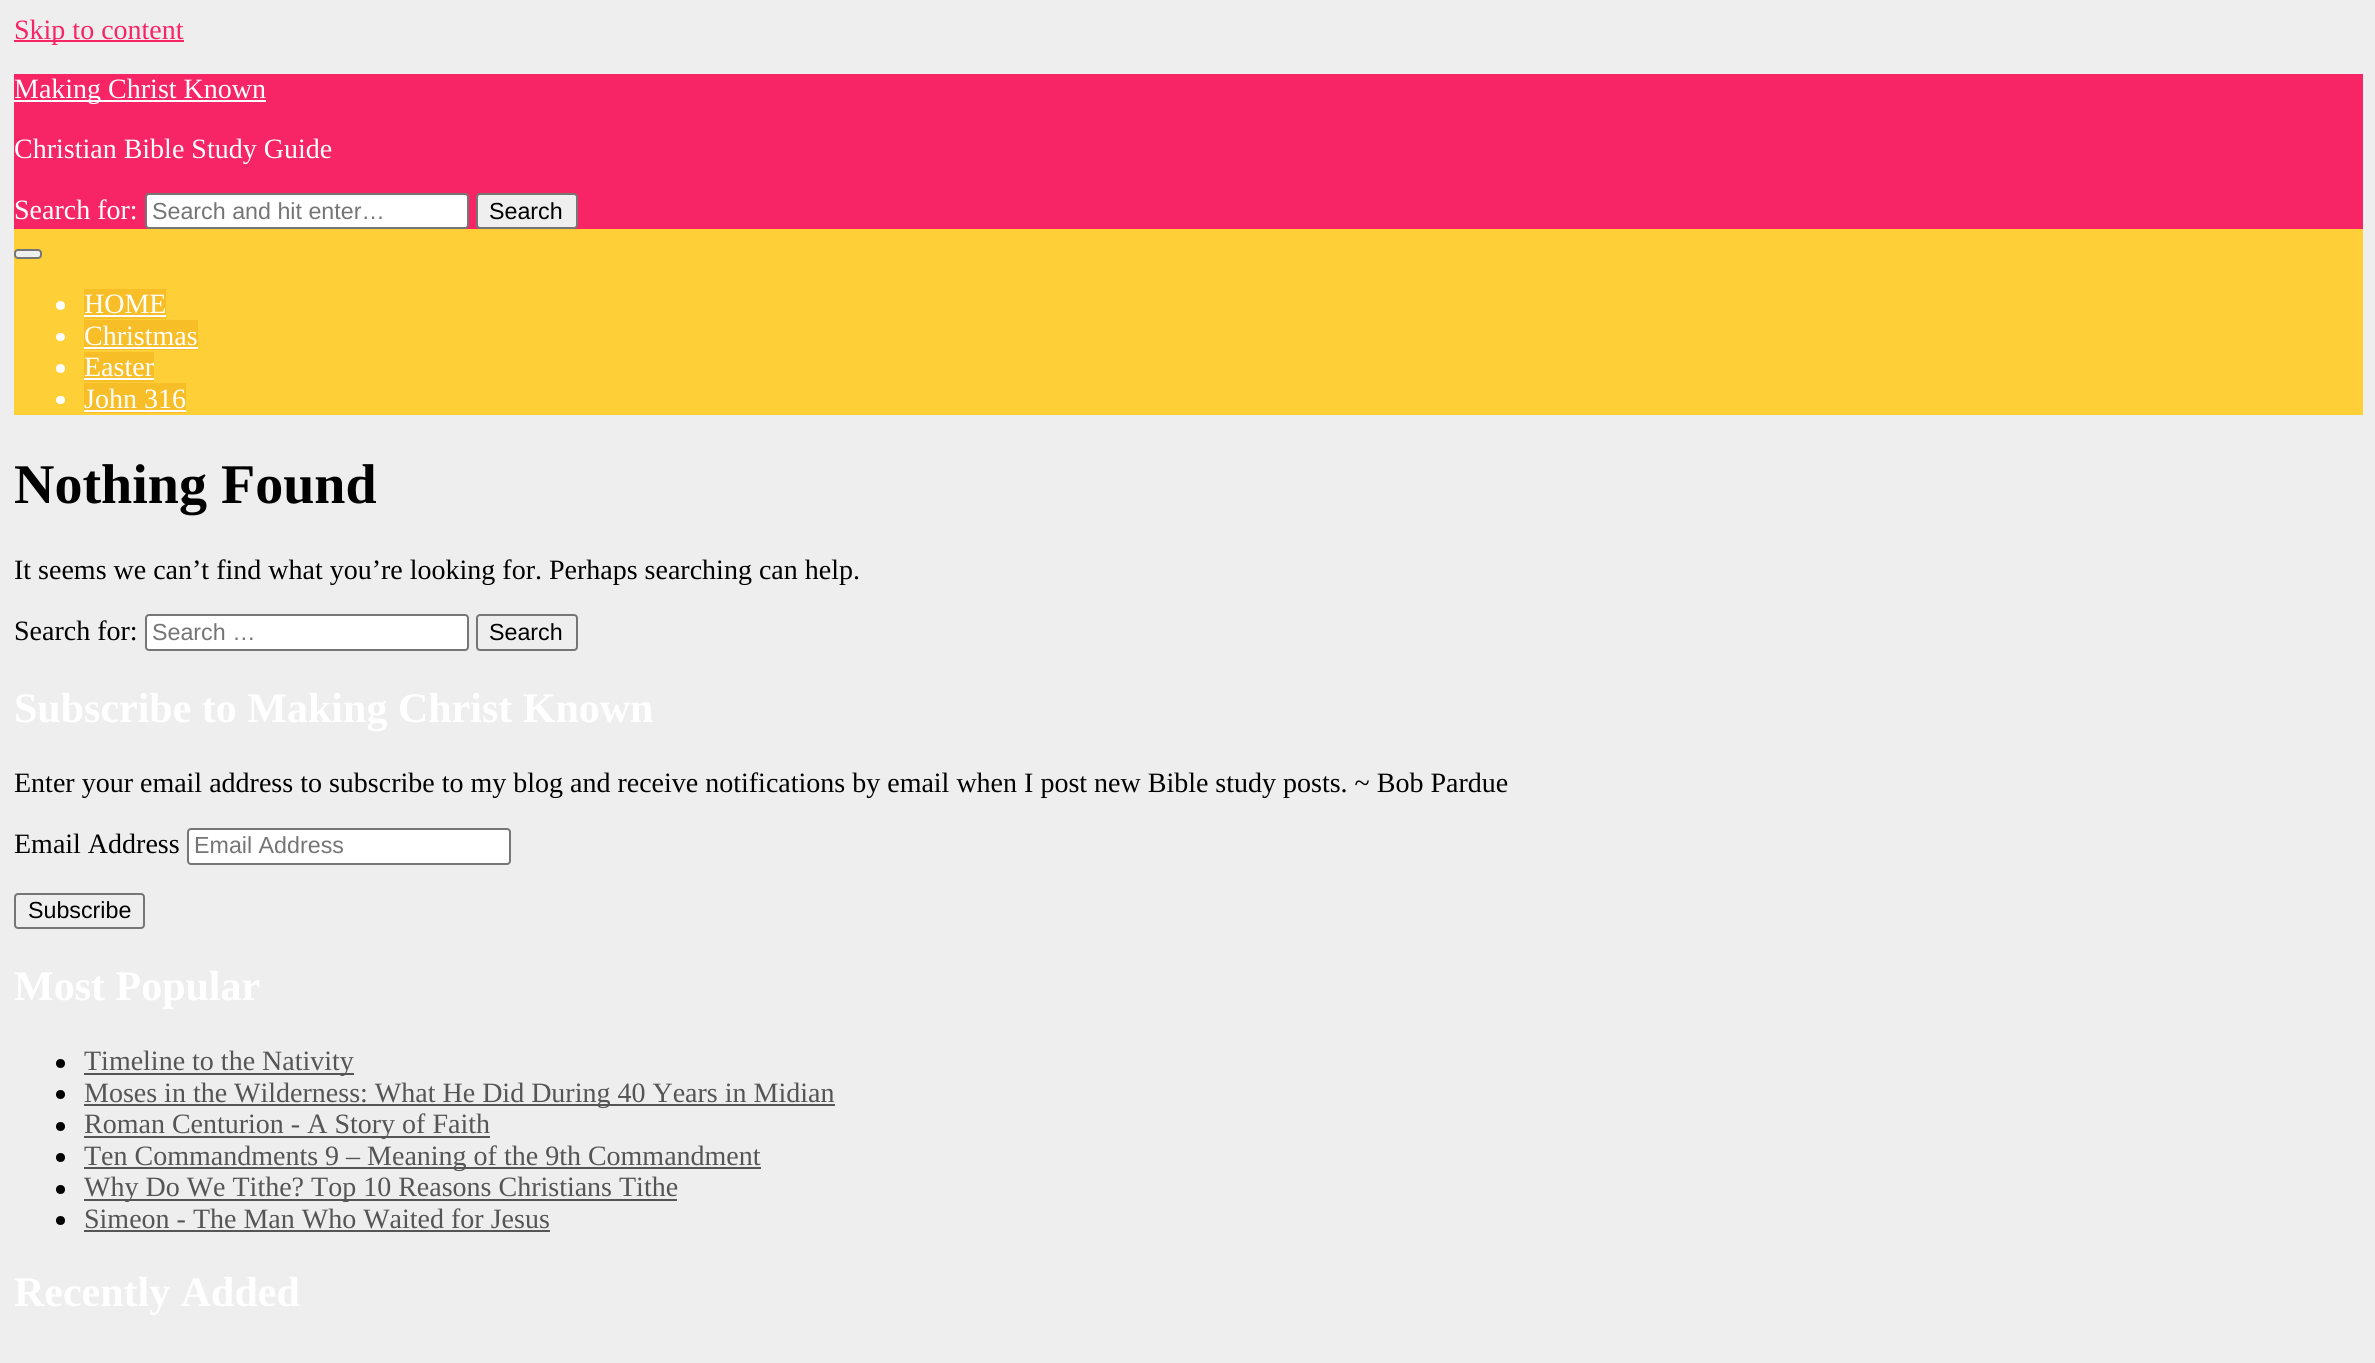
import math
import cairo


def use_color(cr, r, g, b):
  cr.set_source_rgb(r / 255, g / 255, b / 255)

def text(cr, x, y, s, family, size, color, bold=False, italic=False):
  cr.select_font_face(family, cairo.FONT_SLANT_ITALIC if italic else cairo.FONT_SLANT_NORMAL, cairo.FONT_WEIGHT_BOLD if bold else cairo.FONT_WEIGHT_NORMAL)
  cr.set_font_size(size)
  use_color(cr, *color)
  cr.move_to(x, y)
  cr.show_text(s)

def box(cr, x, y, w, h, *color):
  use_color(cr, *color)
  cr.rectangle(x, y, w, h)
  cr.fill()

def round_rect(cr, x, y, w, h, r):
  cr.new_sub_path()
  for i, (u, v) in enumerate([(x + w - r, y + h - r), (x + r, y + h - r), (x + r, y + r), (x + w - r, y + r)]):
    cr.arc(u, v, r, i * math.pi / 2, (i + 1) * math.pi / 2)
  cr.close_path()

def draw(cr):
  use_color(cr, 238, 238, 238)
  cr.paint()
  box(cr, 14, 40, 170, 2, 247, 37, 101)
  box(cr, 14, 74, 2349, 155, 247, 37, 101)
  box(cr, 14, 100, 252, 2, 255, 255, 255)
  round_rect(cr, 146, 194, 322, 34, 3)
  cr.fill_preserve()
  use_color(cr, 118, 118, 118)
  cr.stroke()
  use_color(cr, 239, 239, 239)
  round_rect(cr, 477, 194, 100, 34, 3)
  cr.fill_preserve()
  use_color(cr, 118, 118, 118)
  cr.stroke()
  box(cr, 14, 229, 2349, 186, 255, 207, 56)
  use_color(cr, 239, 239, 239)
  round_rect(cr, 15, 250, 26, 8, 3)
  cr.fill_preserve()
  use_color(cr, 118, 118, 118)
  cr.stroke()
  use_color(cr, 255, 255, 255)
  cr.arc(60.5, 305.5, 4.5, 0, 2 * math.pi)
  cr.fill()
  box(cr, 84, 289, 82, 30, 248, 190, 39)
  box(cr, 84, 315, 82, 2, 255, 255, 255)
  round_rect(cr, 56, 333, 9, 8, 4)
  cr.fill()
  box(cr, 84, 320, 114, 30, 248, 190, 39)
  box(cr, 84, 347, 114, 2, 255, 255, 255)
  cr.arc(60.5, 368.5, 4.5, 0, 2 * math.pi)
  cr.fill()
  box(cr, 84, 352, 70, 30, 248, 190, 39)
  box(cr, 84, 378, 70, 2, 255, 255, 255)
  round_rect(cr, 56, 396, 9, 8, 4)
  cr.fill()
  box(cr, 84, 383, 102, 30, 248, 190, 39)
  box(cr, 84, 410, 102, 2, 255, 255, 255)
  round_rect(cr, 146, 615, 322, 35, 3)
  cr.fill_preserve()
  use_color(cr, 118, 118, 118)
  cr.stroke()
  round_rect(cr, 477, 615, 100, 35, 3)
  cr.stroke()
  use_color(cr, 255, 255, 255)
  round_rect(cr, 188, 829, 322, 35, 3)
  cr.fill_preserve()
  use_color(cr, 118, 118, 118)
  cr.stroke()
  round_rect(cr, 15, 894, 129, 34, 3)
  cr.stroke()
  use_color(cr, 0, 0, 0)
  cr.arc(60.5, 1063.5, 4.5, 0, 2 * math.pi)
  cr.fill()
  box(cr, 84, 1073, 270, 2, 85, 85, 85)
  use_color(cr, 0, 0, 0)
  cr.arc(60.5, 1094.5, 4.5, 0, 2 * math.pi)
  cr.fill()
  box(cr, 84, 1104, 751, 2, 85, 85, 85)
  use_color(cr, 0, 0, 0)
  cr.arc(60.5, 1126.5, 4.5, 0, 2 * math.pi)
  cr.fill()
  box(cr, 84, 1136, 406, 2, 85, 85, 85)
  use_color(cr, 0, 0, 0)
  cr.arc(60.5, 1157.5, 4.5, 0, 2 * math.pi)
  cr.fill()
  box(cr, 84, 1167, 677, 2, 85, 85, 85)
  use_color(cr, 0, 0, 0)
  cr.arc(60.5, 1189.5, 4.5, 0, 2 * math.pi)
  cr.fill()
  box(cr, 84, 1199, 593, 2, 85, 85, 85)
  use_color(cr, 0, 0, 0)
  cr.arc(60.5, 1220.5, 4.5, 0, 2 * math.pi)
  cr.fill()
  box(cr, 84, 1230, 466, 2, 85, 85, 85)
  text(cr, 14, 39, "Skip to content", "Liberation Serif", 28, (247, 37, 101))
  text(cr, 14, 98, "Making Christ Known", "Liberation Serif", 28, (255, 255, 255))
  text(cr, 14, 158, "Christian Bible Study Guide", "Liberation Serif", 28, (255, 255, 255))
  text(cr, 14, 219, "Search for:", "Liberation Serif", 28, (255, 255, 255))
  text(cr, 152, 219, "Search and hit enter…", "Liberation Sans", 23.25, (117, 117, 117))
  text(cr, 489, 219, "Search", "Liberation Sans", 23.25, (0, 0, 0))
  text(cr, 84, 313, "HOME", "Liberation Serif", 28, (255, 255, 255))
  text(cr, 84, 345, "Christmas", "Liberation Serif", 28, (255, 255, 255))
  text(cr, 84, 376, "Easter", "Liberation Serif", 28, (255, 255, 255))
  text(cr, 84, 408, "John 316", "Liberation Serif", 28, (255, 255, 255))
  text(cr, 14, 503, "Nothing Found", "Liberation Serif", 56, (0, 0, 0), bold=True)
  text(cr, 14, 579, "It seems we can’t find what you’re looking for. Perhaps searching can help.", "Liberation Serif", 28, (0, 0, 0))
  text(cr, 14, 640, "Search for:", "Liberation Serif", 28, (0, 0, 0))
  text(cr, 152, 640, "Search …", "Liberation Sans", 23.25, (117, 117, 117))
  text(cr, 489, 640, "Search", "Liberation Sans", 23.25, (0, 0, 0))
  text(cr, 14, 722, "Subscribe to Making Christ Known", "Liberation Serif", 42, (255, 255, 255), bold=True)
  text(cr, 14, 792, "Enter your email address to subscribe to my blog and receive notifications by email when I post new Bible study posts. ~ Bob Pardue", "Liberation Serif", 28, (0, 0, 0))
  text(cr, 14, 853, "Email Address", "Liberation Serif", 28, (0, 0, 0))
  text(cr, 194, 853, "Email Address", "Liberation Sans", 23.25, (117, 117, 117))
  text(cr, 28, 918, "Subscribe", "Liberation Sans", 23.25, (0, 0, 0))
  text(cr, 14, 1000, "Most Popular", "Liberation Serif", 42, (255, 255, 255), bold=True)
  text(cr, 84, 1070, "Timeline to the Nativity", "Liberation Serif", 28, (85, 85, 85))
  text(cr, 84, 1102, "Moses in the Wilderness: What He Did During 40 Years in Midian", "Liberation Serif", 28, (85, 85, 85))
  text(cr, 84, 1133, "Roman Centurion - A Story of Faith", "Liberation Serif", 28, (85, 85, 85))
  text(cr, 84, 1165, "Ten Commandments 9 – Meaning of the 9th Commandment", "Liberation Serif", 28, (85, 85, 85))
  text(cr, 84, 1196, "Why Do We Tithe? Top 10 Reasons Christians Tithe", "Liberation Serif", 28, (85, 85, 85))
  text(cr, 84, 1228, "Simeon - The Man Who Waited for Jesus", "Liberation Serif", 28, (85, 85, 85))
  text(cr, 14, 1306, "Recently Added", "Liberation Serif", 42, (255, 255, 255), bold=True)


surface = cairo.ImageSurface(cairo.FORMAT_RGB24, 2375, 1363)
cr = cairo.Context(surface)
options = cairo.FontOptions()
options.set_hint_metrics(cairo.HINT_METRICS_OFF)
options.set_hint_style(cairo.HINT_STYLE_NONE)
cr.set_font_options(options)
cr.set_miter_limit(4)
draw(cr)
surface.write_to_png("out.png")
